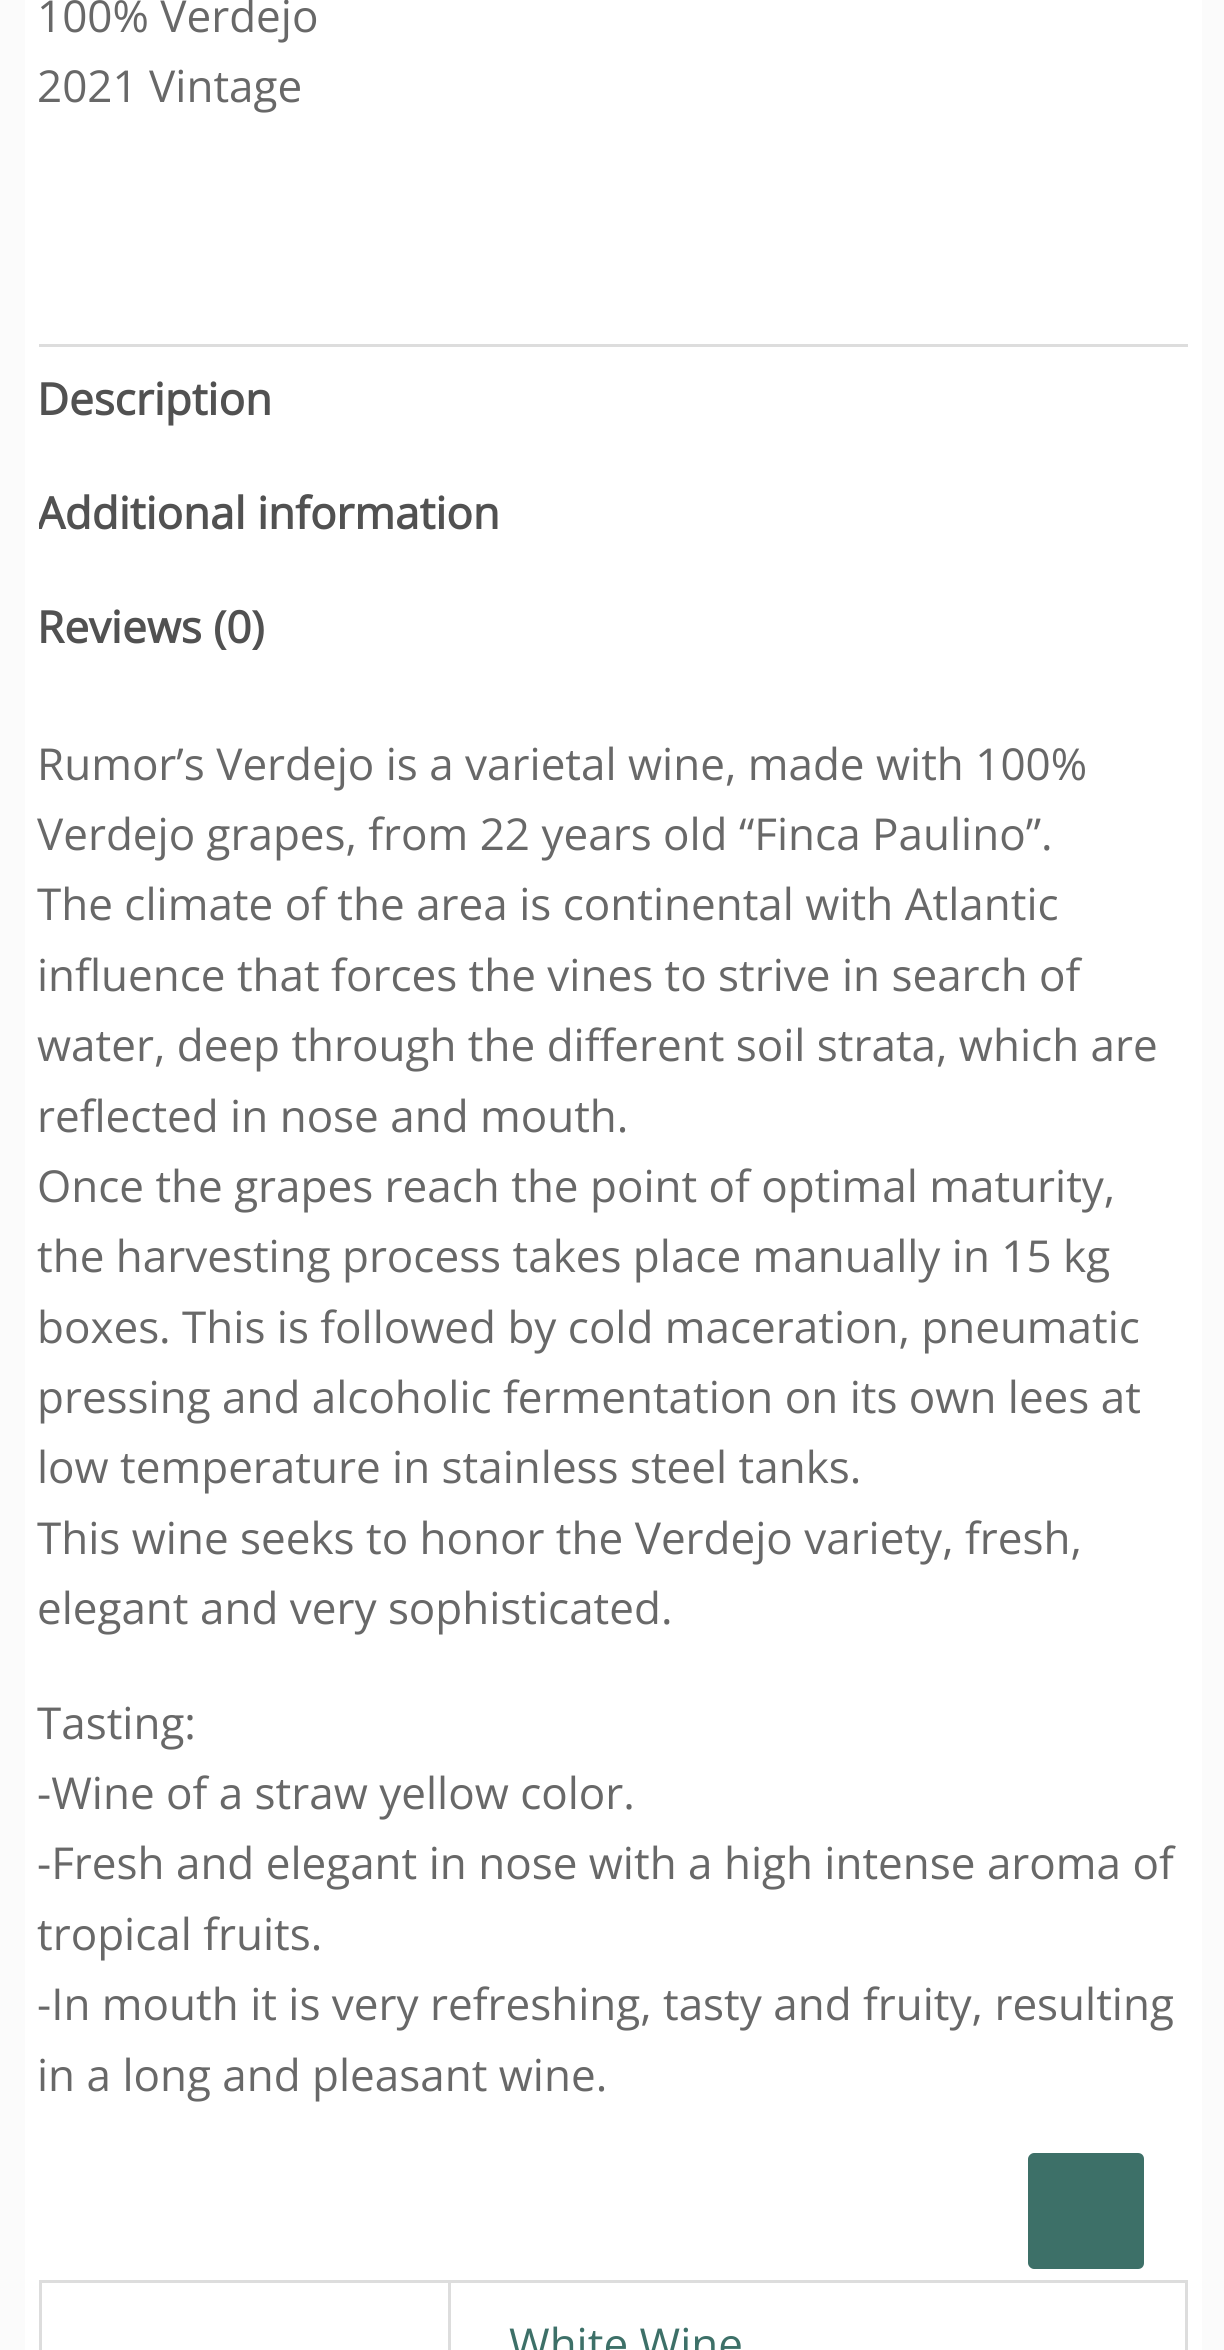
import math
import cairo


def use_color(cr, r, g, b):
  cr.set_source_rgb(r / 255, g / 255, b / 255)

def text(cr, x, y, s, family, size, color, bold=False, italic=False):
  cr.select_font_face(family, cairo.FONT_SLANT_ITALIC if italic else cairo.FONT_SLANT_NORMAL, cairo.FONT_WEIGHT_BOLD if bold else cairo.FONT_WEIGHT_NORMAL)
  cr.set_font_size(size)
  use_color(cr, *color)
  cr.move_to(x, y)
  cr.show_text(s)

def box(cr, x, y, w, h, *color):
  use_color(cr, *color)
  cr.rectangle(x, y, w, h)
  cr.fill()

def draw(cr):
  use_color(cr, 251, 251, 251)
  cr.paint()
  box(cr, 25, 0, 1177, 2350, 255, 255, 255)
  box(cr, 39, 344, 1149, 3, 221, 221, 221)
  box(cr, 39, 2280, 1149, 3, 221, 221, 221)
  box(cr, 448, 2283, 3, 67, 221, 221, 221)
  box(cr, 39, 2283, 3, 67, 221, 221, 221)
  box(cr, 1185, 2283, 3, 67, 221, 221, 221)
  use_color(cr, 61, 112, 104)
  cr.new_path()
  cr.move_to(1138, 2269)
  cr.line_to(1034, 2269)
  cr.curve_to(1031, 2269, 1028, 2266, 1028, 2263)
  cr.line_to(1028, 2159)
  cr.curve_to(1028, 2156, 1031, 2153, 1034, 2153)
  cr.line_to(1138, 2153)
  cr.curve_to(1142, 2153, 1144, 2156, 1144, 2159)
  cr.line_to(1144, 2263)
  cr.curve_to(1144, 2266, 1142, 2269, 1138, 2269)
  cr.close_path()
  cr.fill()
  text(cr, 37, 32, "100% Verdejo", "Open Sans", 44, (104, 104, 104))
  text(cr, 37, 102, "2021 Vintage", "Open Sans", 44, (104, 104, 104))
  text(cr, 37, 415, "Description", "Open Sans", 44, (81, 81, 81), bold=True)
  cr.save()
  cr.rectangle(39, 344, 1149, 344)
  cr.clip()
  text(cr, 37, 529, "Additional information", "Open Sans", 44, (81, 81, 81), bold=True)
  cr.restore()
  text(cr, 37, 643, "Reviews (0)", "Open Sans", 44, (81, 81, 81), bold=True)
  text(cr, 37, 780, "Rumor’s Verdejo is a varietal wine, made with 100%", "Open Sans", 44, (104, 104, 104))
  text(cr, 37, 850, "Verdejo grapes, from 22 years old “Finca Paulino”.", "Open Sans", 44, (104, 104, 104))
  text(cr, 37, 920, "The climate of the area is continental with Atlantic", "Open Sans", 44, (104, 104, 104))
  text(cr, 37, 991, "influence that forces the vines to strive in search of", "Open Sans", 44, (104, 104, 104))
  text(cr, 37, 1061, "water, deep through the different soil strata, which are", "Open Sans", 44, (104, 104, 104))
  text(cr, 37, 1132, "reflected in nose and mouth.", "Open Sans", 44, (104, 104, 104))
  text(cr, 37, 1202, "Once the grapes reach the point of optimal maturity,", "Open Sans", 44, (104, 104, 104))
  text(cr, 37, 1272, "the harvesting process takes place manually in 15 kg", "Open Sans", 44, (104, 104, 104))
  text(cr, 37, 1343, "boxes. This is followed by cold maceration, pneumatic", "Open Sans", 44, (104, 104, 104))
  text(cr, 37, 1413, "pressing and alcoholic fermentation on its own lees at", "Open Sans", 44, (104, 104, 104))
  text(cr, 37, 1483, "low temperature in stainless steel tanks.", "Open Sans", 44, (104, 104, 104))
  text(cr, 37, 1554, "This wine seeks to honor the Verdejo variety, fresh,", "Open Sans", 44, (104, 104, 104))
  text(cr, 37, 1624, "elegant and very sophisticated.", "Open Sans", 44, (104, 104, 104))
  text(cr, 37, 1739, "Tasting:", "Open Sans", 44, (104, 104, 104))
  text(cr, 37, 1809, "-Wine of a straw yellow color.", "Open Sans", 44, (104, 104, 104))
  text(cr, 37, 1879, "-Fresh and elegant in nose with a high intense aroma of", "Open Sans", 44, (104, 104, 104))
  text(cr, 37, 1950, "tropical fruits.", "Open Sans", 44, (104, 104, 104))
  text(cr, 37, 2020, "-In mouth it is very refreshing, tasty and fruity, resulting", "Open Sans", 44, (104, 104, 104))
  text(cr, 37, 2091, "in a long and pleasant wine.", "Open Sans", 44, (104, 104, 104))
  text(cr, 509, 2360, "White Wine", "Open Sans", 44, (61, 112, 104))


surface = cairo.ImageSurface(cairo.FORMAT_RGB24, 1224, 2350)
cr = cairo.Context(surface)
options = cairo.FontOptions()
options.set_hint_metrics(cairo.HINT_METRICS_OFF)
options.set_hint_style(cairo.HINT_STYLE_NONE)
cr.set_font_options(options)
cr.set_miter_limit(4)
draw(cr)
surface.write_to_png("out.png")
